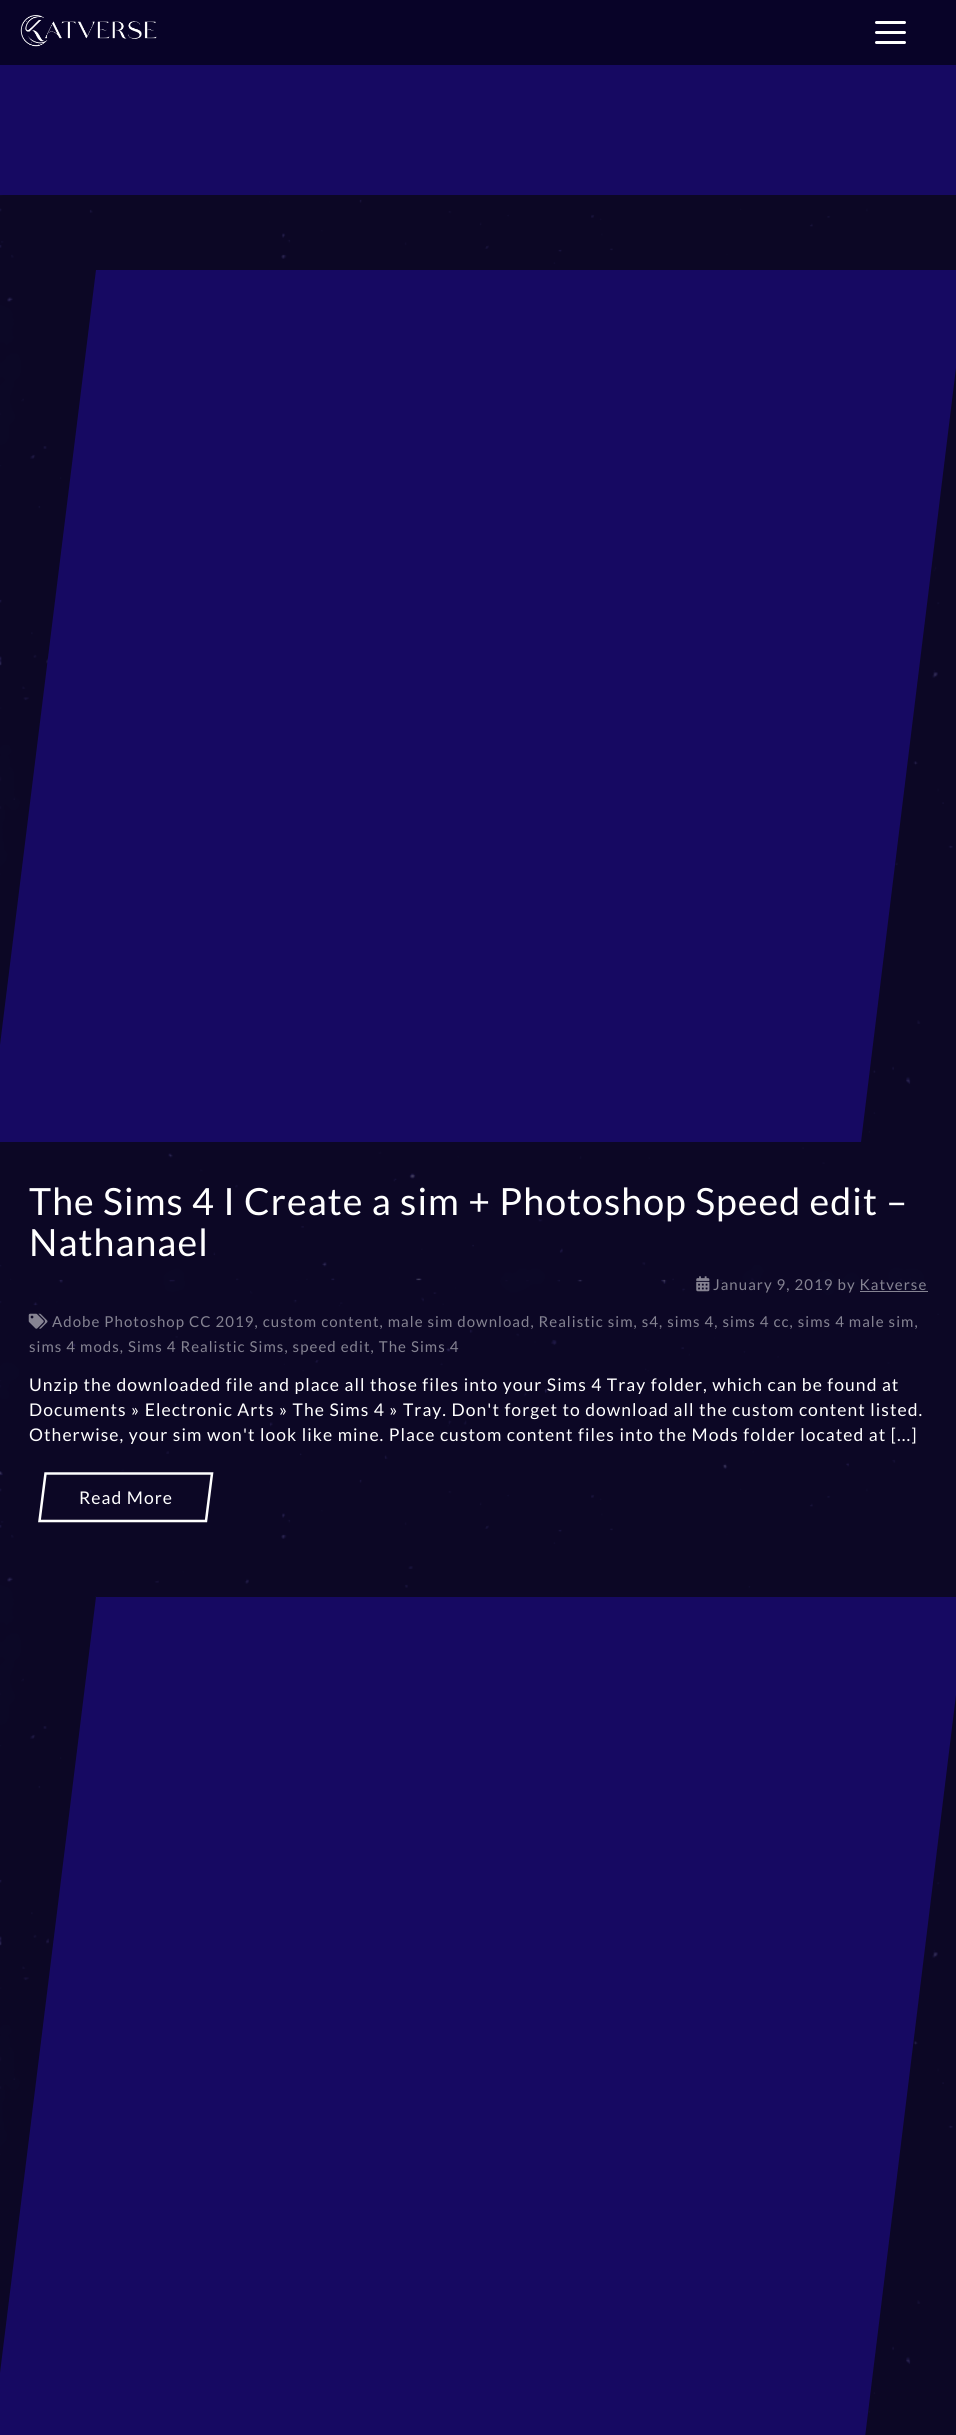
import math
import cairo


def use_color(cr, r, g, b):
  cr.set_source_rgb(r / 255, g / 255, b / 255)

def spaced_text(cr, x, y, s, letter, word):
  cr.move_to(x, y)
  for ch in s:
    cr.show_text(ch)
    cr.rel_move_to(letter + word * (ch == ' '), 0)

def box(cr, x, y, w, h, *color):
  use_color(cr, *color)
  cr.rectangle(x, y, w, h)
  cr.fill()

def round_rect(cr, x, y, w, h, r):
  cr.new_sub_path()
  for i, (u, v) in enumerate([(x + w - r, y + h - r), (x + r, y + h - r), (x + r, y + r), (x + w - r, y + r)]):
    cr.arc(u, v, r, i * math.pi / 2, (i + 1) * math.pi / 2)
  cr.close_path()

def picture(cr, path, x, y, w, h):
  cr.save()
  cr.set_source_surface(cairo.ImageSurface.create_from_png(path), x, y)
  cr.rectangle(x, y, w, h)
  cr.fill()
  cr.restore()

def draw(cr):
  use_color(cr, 255, 255, 255)
  cr.paint()
  picture(cr, "img_01.png", 0, 195, 956, 2240)
  box(cr, 0, 0, 956, 195, 22, 9, 98)
  cr.set_source_rgba(0.031, 0.012, 0.145, 0.94)
  cr.rectangle(0, 0, 956, 65)
  cr.fill()
  picture(cr, "img_02.png", 20, 15, 137, 32)
  use_color(cr, 255, 255, 255)
  round_rect(cr, 875, 21, 31, 3, 1.5)
  cr.fill()
  round_rect(cr, 875, 31, 31, 3, 1.5)
  cr.fill()
  round_rect(cr, 875, 41, 31, 3, 1.5)
  cr.fill()
  use_color(cr, 22, 9, 98)
  cr.new_path()
  cr.move_to(96, 270)
  cr.line_to(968, 270)
  cr.line_to(861, 1142)
  cr.line_to(-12, 1142)
  cr.close_path()
  cr.fill()
  picture(cr, "img_03.png", 696, 1276, 14, 16)
  box(cr, 860, 1291, 68, 1, 133, 131, 146)
  picture(cr, "img_04.png", 28, 1313, 20, 16)
  cr.new_path()
  cr.move_to(45.5, 1473.5)
  cr.line_to(212, 1473.5)
  cr.line_to(206, 1521)
  cr.line_to(39.5, 1521)
  cr.close_path()
  use_color(cr, 255, 255, 255)
  cr.set_line_width(2.5)
  cr.stroke()
  use_color(cr, 22, 9, 98)
  cr.new_path()
  cr.move_to(96, 1597)
  cr.line_to(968, 1597)
  cr.line_to(861, 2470)
  cr.line_to(-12, 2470)
  cr.close_path()
  cr.fill()
  cr.select_font_face("Lato")
  cr.set_font_size(37.5)
  use_color(cr, 255, 255, 255)
  spaced_text(cr, 29, 1215, "The Sims 4 I Create a sim + Photoshop Speed edit –", 1.05, 0)
  spaced_text(cr, 29, 1256, "Nathanael", 1.05, 0)
  cr.set_font_size(15)
  use_color(cr, 133, 131, 146)
  spaced_text(cr, 713, 1290, "January 9, 2019 by Katverse", 1.05, 0)
  spaced_text(cr, 52, 1327, "Adobe Photoshop CC 2019, custom content, male sim download, Realistic sim, s4, sims 4, sims 4 cc, sims 4 male sim,", 1.05, 0)
  spaced_text(cr, 29, 1352, "sims 4 mods, Sims 4 Realistic Sims, speed edit, The Sims 4", 1.05, 0)
  cr.set_font_size(17.5)
  use_color(cr, 255, 255, 255)
  spaced_text(cr, 29, 1391, "Unzip the downloaded file and place all those files into your Sims 4 Tray folder, which can be found at", 1.05, 0)
  spaced_text(cr, 29, 1416, "Documents » Electronic Arts » The Sims 4 » Tray. Don't forget to download all the custom content listed.", 1.05, 0)
  spaced_text(cr, 29, 1441, "Otherwise, your sim won't look like mine. Place custom content files into the Mods folder located at [...]", 1.05, 0)
  spaced_text(cr, 79, 1504, "Read More", 1.05, 0)


surface = cairo.ImageSurface(cairo.FORMAT_RGB24, 956, 2435)
cr = cairo.Context(surface)
options = cairo.FontOptions()
options.set_hint_metrics(cairo.HINT_METRICS_OFF)
options.set_hint_style(cairo.HINT_STYLE_NONE)
cr.set_font_options(options)
cr.set_miter_limit(4)
draw(cr)
surface.write_to_png("out.png")
